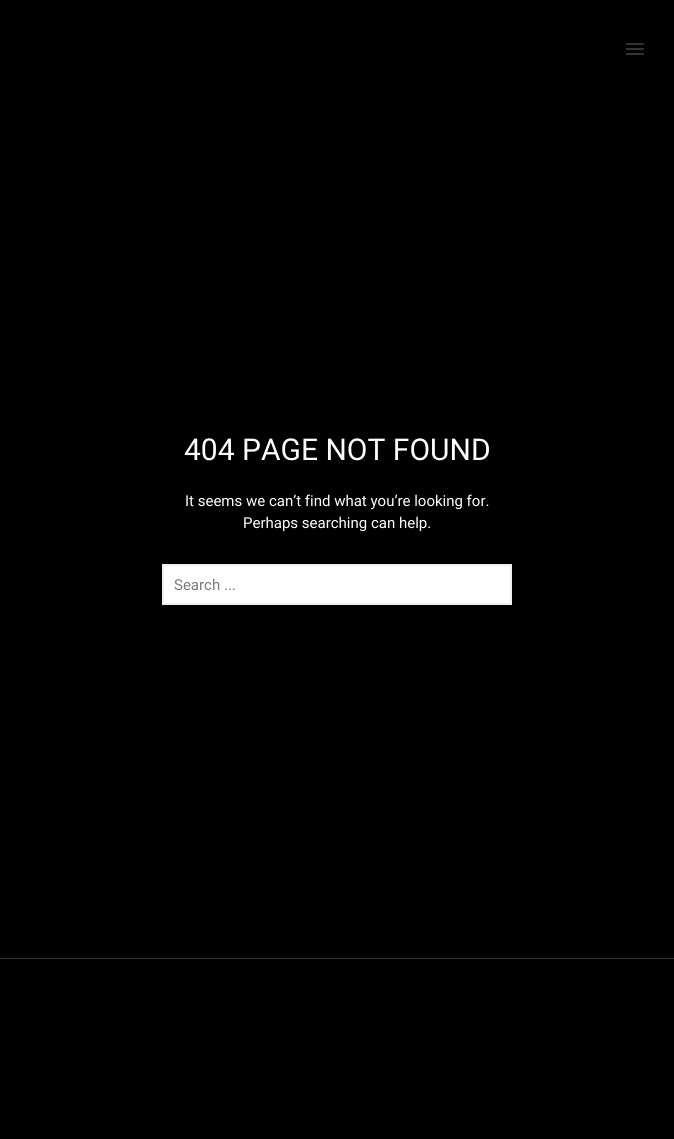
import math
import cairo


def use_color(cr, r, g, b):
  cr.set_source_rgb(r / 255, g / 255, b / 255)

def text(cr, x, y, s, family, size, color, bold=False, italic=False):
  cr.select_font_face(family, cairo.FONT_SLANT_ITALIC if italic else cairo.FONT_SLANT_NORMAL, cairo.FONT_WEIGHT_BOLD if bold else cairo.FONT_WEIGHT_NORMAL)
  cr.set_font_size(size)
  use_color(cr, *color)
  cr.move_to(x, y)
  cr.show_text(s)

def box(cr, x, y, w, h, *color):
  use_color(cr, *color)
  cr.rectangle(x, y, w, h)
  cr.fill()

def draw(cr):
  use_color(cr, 0, 0, 0)
  cr.paint()
  box(cr, 626, 43, 18, 2, 50, 50, 50)
  box(cr, 626, 48, 18, 2, 50, 50, 50)
  box(cr, 626, 53, 18, 2, 50, 50, 50)
  use_color(cr, 255, 255, 255)
  cr.rectangle(163, 565, 348, 39)
  cr.fill_preserve()
  use_color(cr, 238, 238, 238)
  cr.stroke()
  box(cr, 0, 958, 674, 1, 50, 50, 50)
  text(cr, 184, 460, "404 PAGE NOT FOUND", "Roboto", 30, (255, 255, 255))
  text(cr, 185, 506, "It seems we can’t find what you’re looking for.", "Roboto", 15, (255, 255, 255))
  text(cr, 243, 528, "Perhaps searching can help.", "Roboto", 15, (255, 255, 255))
  text(cr, 174, 590, "Search ...", "Roboto", 15, (122, 122, 122))


surface = cairo.ImageSurface(cairo.FORMAT_RGB24, 674, 1139)
cr = cairo.Context(surface)
options = cairo.FontOptions()
options.set_hint_metrics(cairo.HINT_METRICS_OFF)
options.set_hint_style(cairo.HINT_STYLE_NONE)
cr.set_font_options(options)
cr.set_miter_limit(4)
draw(cr)
surface.write_to_png("out.png")
